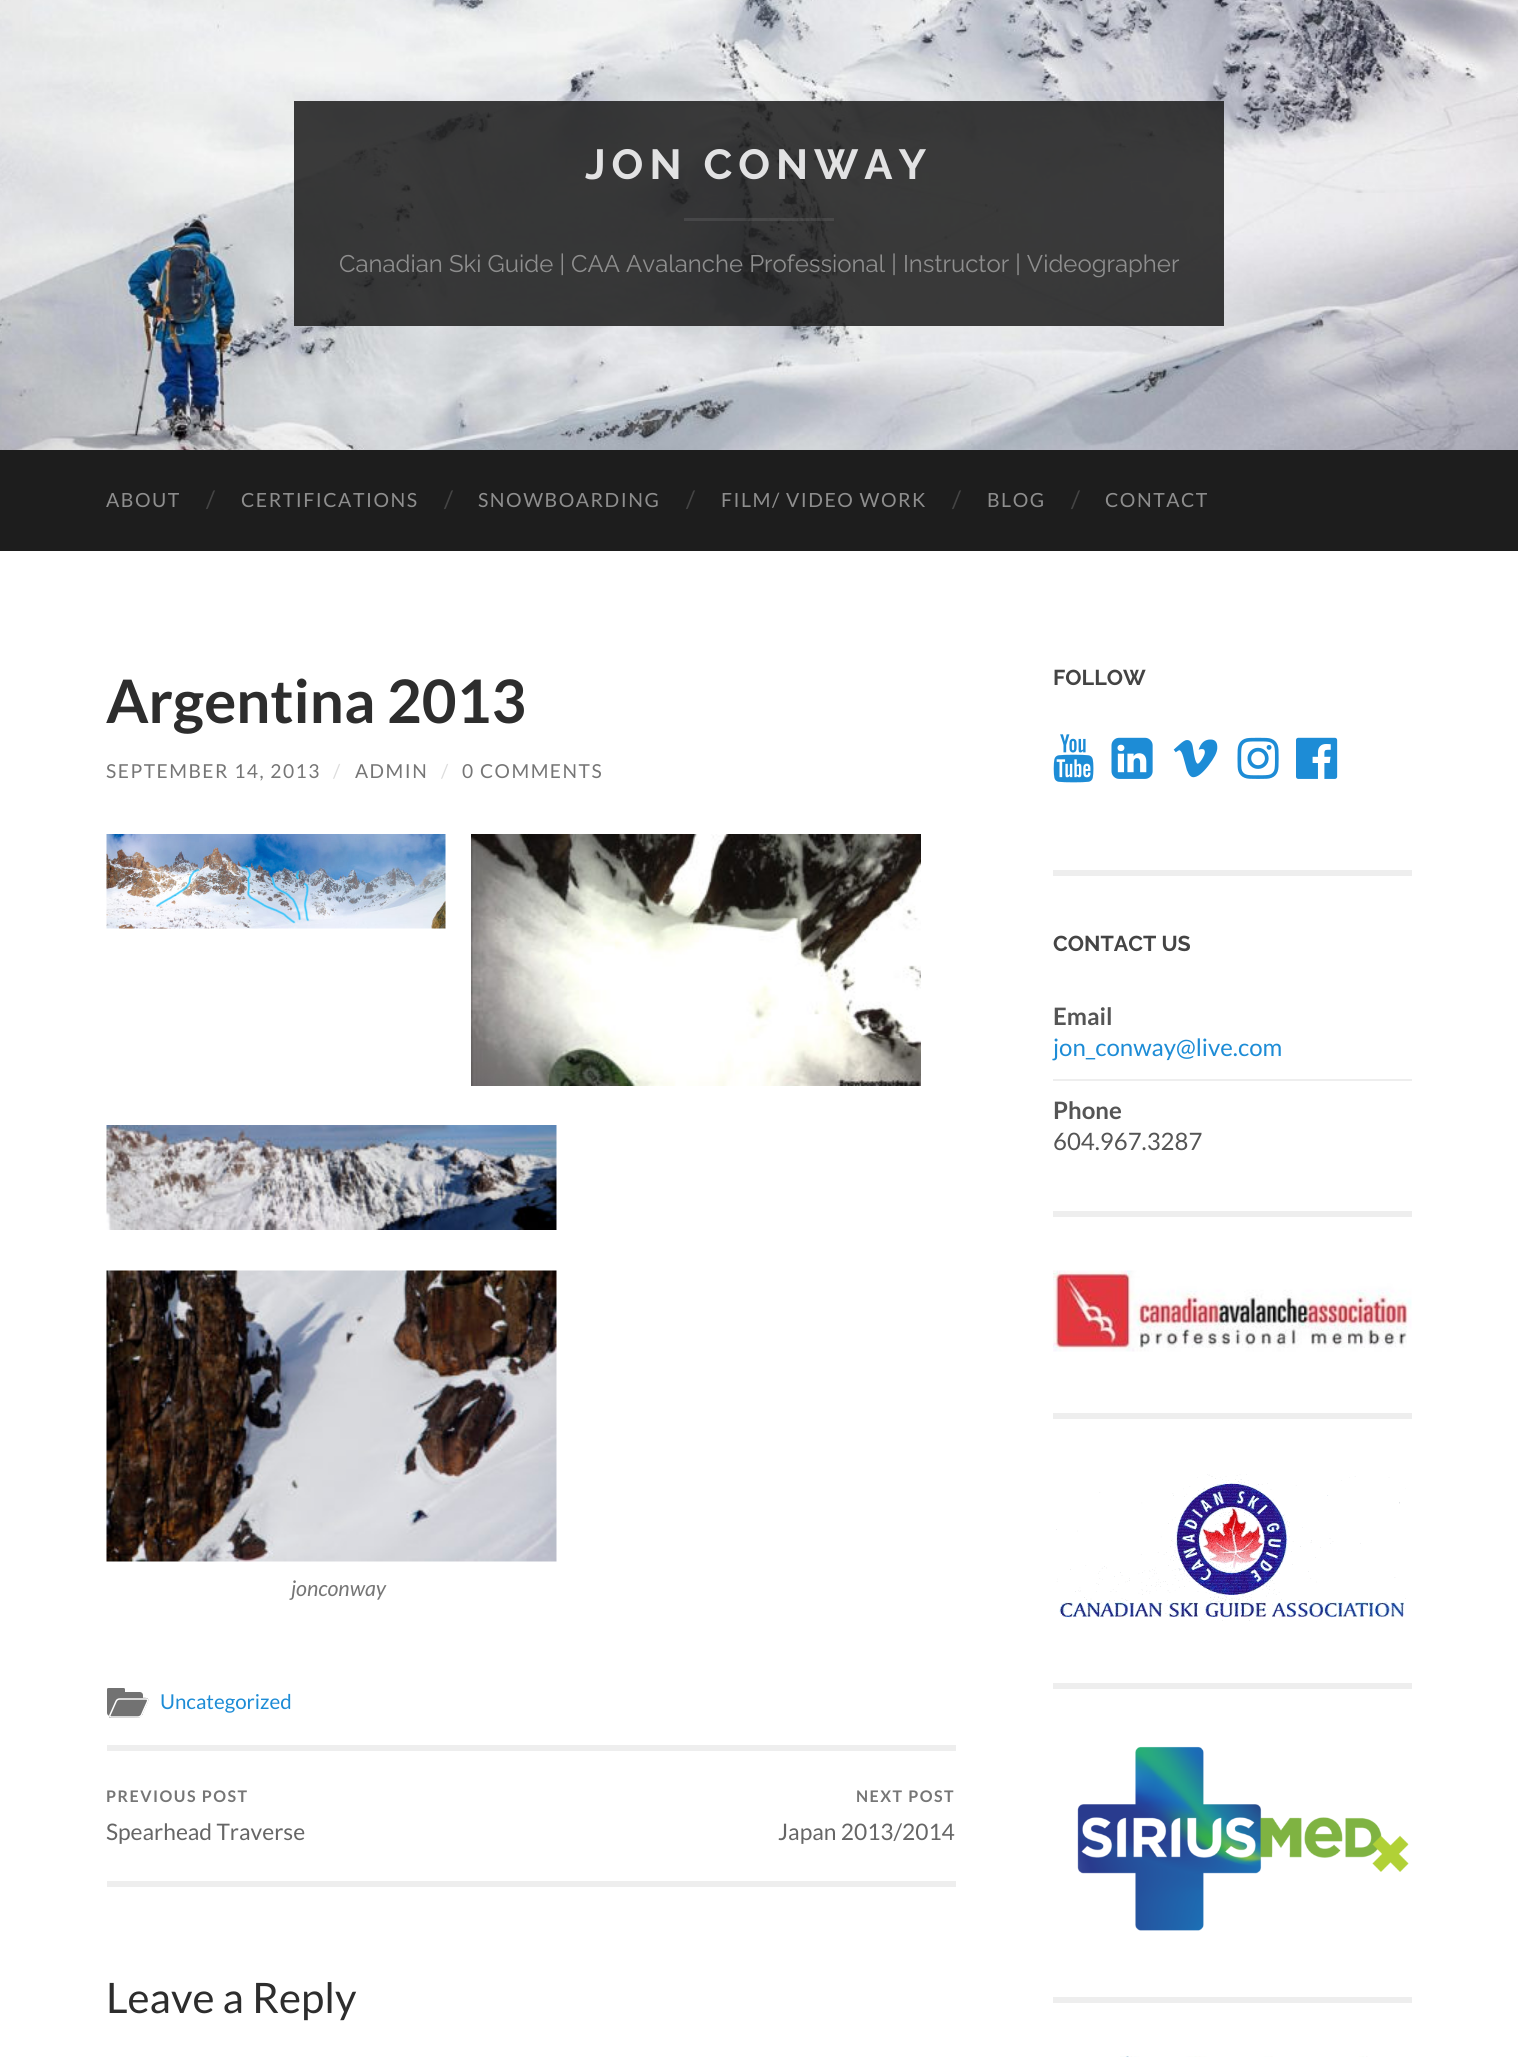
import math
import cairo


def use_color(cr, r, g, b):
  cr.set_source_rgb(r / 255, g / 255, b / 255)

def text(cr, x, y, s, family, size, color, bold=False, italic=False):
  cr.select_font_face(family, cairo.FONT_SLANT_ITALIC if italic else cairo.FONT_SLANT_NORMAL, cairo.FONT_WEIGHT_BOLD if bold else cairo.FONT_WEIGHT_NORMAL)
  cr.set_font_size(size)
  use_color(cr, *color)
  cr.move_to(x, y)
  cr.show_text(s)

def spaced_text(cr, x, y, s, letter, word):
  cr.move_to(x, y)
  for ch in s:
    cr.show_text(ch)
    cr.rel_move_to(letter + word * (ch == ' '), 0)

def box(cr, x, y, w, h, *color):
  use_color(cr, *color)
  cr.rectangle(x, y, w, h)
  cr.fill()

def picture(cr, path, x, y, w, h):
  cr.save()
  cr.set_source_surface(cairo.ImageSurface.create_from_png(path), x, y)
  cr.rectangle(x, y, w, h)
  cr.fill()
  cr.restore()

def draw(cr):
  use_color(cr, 255, 255, 255)
  cr.paint()
  picture(cr, "img_01.png", 0, 0, 1518, 450)
  cr.set_source_rgba(0.114, 0.114, 0.114, 0.86)
  cr.rectangle(294, 101, 930, 225)
  cr.fill()
  cr.set_source_rgba(1, 1, 1, 0.09)
  cr.rectangle(684, 218, 150, 3)
  cr.fill()
  box(cr, 0, 450, 1518, 101, 29, 29, 29)
  picture(cr, "img_02.png", 106, 834, 340, 95)
  picture(cr, "img_03.png", 471, 834, 450, 252)
  picture(cr, "img_04.png", 106, 1125, 451, 105)
  picture(cr, "img_05.png", 106, 1270, 451, 292)
  use_color(cr, 114, 114, 114)
  cr.new_path()
  cr.move_to(107, 1692)
  cr.line_to(140, 1692)
  cr.curve_to(141.5, 1692, 143, 1693.5, 143, 1695)
  cr.line_to(143, 1713)
  cr.curve_to(143, 1714.5, 141.5, 1716, 140, 1716)
  cr.line_to(110, 1716)
  cr.curve_to(108.5, 1716, 107, 1714.5, 107, 1713)
  cr.close_path()
  cr.fill()
  cr.new_path()
  cr.move_to(108.5, 1688)
  cr.line_to(123.5, 1688)
  cr.curve_to(124.5, 1688, 125, 1688.5, 125, 1689.5)
  cr.line_to(125, 1693)
  cr.line_to(107, 1693)
  cr.line_to(107, 1689.5)
  cr.curve_to(107, 1688.5, 107.5, 1688, 108.5, 1688)
  cr.close_path()
  cr.fill()
  cr.new_path()
  cr.move_to(120, 1698)
  cr.line_to(138, 1698)
  cr.curve_to(145, 1698, 151, 1696, 147, 1704)
  cr.line_to(143, 1713)
  cr.curve_to(141, 1718, 139, 1718, 133, 1718)
  cr.line_to(111, 1718)
  cr.curve_to(106, 1718, 112, 1710, 112, 1708)
  cr.curve_to(114, 1705, 115, 1698, 120, 1698)
  cr.close_path()
  cr.fill()
  cr.new_path()
  cr.move_to(119.5, 1699)
  cr.line_to(146.5, 1699)
  cr.curve_to(147.5, 1699, 148, 1700, 147.5, 1701.5)
  cr.line_to(141.5, 1715)
  cr.curve_to(141, 1716, 139.5, 1717, 138, 1717)
  cr.line_to(111, 1717)
  cr.curve_to(110, 1717, 109.5, 1716, 110, 1715)
  cr.line_to(116, 1701.5)
  cr.curve_to(116.5, 1700, 118, 1699, 119.5, 1699)
  cr.close_path()
  use_color(cr, 255, 255, 255)
  cr.set_line_width(1.5)
  cr.stroke()
  box(cr, 107, 1745, 849, 6, 238, 238, 238)
  box(cr, 107, 1881, 849, 6, 238, 238, 238)
  box(cr, 1053, 870, 359, 6, 238, 238, 238)
  picture(cr, "img_06.png", 1053, 734, 41, 49)
  picture(cr, "img_07.png", 1111, 737, 42, 42)
  picture(cr, "img_08.png", 1173, 739, 45, 39)
  picture(cr, "img_09.png", 1237, 737, 42, 42)
  picture(cr, "img_10.png", 1296, 737, 42, 42)
  box(cr, 1053, 1211, 359, 6, 238, 238, 238)
  box(cr, 1053, 1079, 359, 2, 238, 238, 238)
  box(cr, 1053, 1413, 359, 6, 238, 238, 238)
  picture(cr, "img_11.png", 1053, 1270, 359, 82)
  box(cr, 1053, 1683, 359, 6, 238, 238, 238)
  picture(cr, "img_12.png", 1056, 1474, 350, 147)
  box(cr, 1053, 1997, 359, 6, 238, 238, 238)
  picture(cr, "img_13.png", 1077, 1746, 332, 185)
  picture(cr, "img_14.png", 1120, 2056, 248, 1)
  cr.select_font_face("Raleway Thin")
  cr.set_font_size(42)
  use_color(cr, 226, 226, 227)
  spaced_text(cr, 585, 179, "JON CONWAY", 6, 0)
  text(cr, 339, 272, "Canadian Ski Guide | CAA Avalanche Professional | Instructor | Videographer", "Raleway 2 Thin", 24, (142, 142, 142))
  cr.select_font_face("Lato")
  cr.set_font_size(19.5)
  spaced_text(cr, 106, 507, "ABOUT", 1.5, 0)
  text(cr, 206, 508, "/", "Lato", 24, (68, 68, 68))
  cr.set_font_size(19.5)
  use_color(cr, 142, 142, 142)
  spaced_text(cr, 241, 507, "CERTIFICATIONS", 1.5, 0)
  text(cr, 444, 508, "/", "Lato", 24, (68, 68, 68))
  cr.set_font_size(19.5)
  use_color(cr, 142, 142, 142)
  spaced_text(cr, 478, 507, "SNOWBOARDING", 1.5, 0)
  text(cr, 686, 508, "/", "Lato", 24, (68, 68, 68))
  cr.set_font_size(19.5)
  use_color(cr, 142, 142, 142)
  spaced_text(cr, 721, 507, "FILM/ VIDEO WORK", 1.5, 0)
  text(cr, 952, 508, "/", "Lato", 24, (68, 68, 68))
  cr.set_font_size(19.5)
  use_color(cr, 142, 142, 142)
  spaced_text(cr, 987, 507, "BLOG", 1.5, 0)
  text(cr, 1071, 508, "/", "Lato", 24, (68, 68, 68))
  cr.set_font_size(19.5)
  use_color(cr, 142, 142, 142)
  spaced_text(cr, 1105, 507, "CONTACT", 1.5, 0)
  text(cr, 106, 723, "Argentina 2013", "Lato", 60, (45, 45, 45), bold=True)
  cr.select_font_face("Lato")
  cr.set_font_size(19.25)
  use_color(cr, 118, 118, 118)
  spaced_text(cr, 106, 778, "SEPTEMBER 14, 2013", 1.5, 0)
  use_color(cr, 221, 221, 221)
  spaced_text(cr, 333, 778, "/", 1.5, 0)
  use_color(cr, 118, 118, 118)
  spaced_text(cr, 355, 778, "ADMIN", 1.5, 0)
  use_color(cr, 221, 221, 221)
  spaced_text(cr, 441, 778, "/", 1.5, 0)
  use_color(cr, 118, 118, 118)
  spaced_text(cr, 462, 778, "0 COMMENTS", 1.5, 0)
  text(cr, 291, 1596, "jonconway", "Lato", 21.5, (118, 118, 118), italic=True)
  text(cr, 160, 1709, "Uncategorized", "Lato", 20.5, (29, 140, 214))
  cr.select_font_face("Lato", cairo.FONT_SLANT_NORMAL, cairo.FONT_WEIGHT_BOLD)
  cr.set_font_size(16)
  use_color(cr, 118, 118, 118)
  spaced_text(cr, 106, 1802, "PREVIOUS POST", 1.5, 0)
  text(cr, 106, 1840, "Spearhead Traverse", "Lato", 22.75, (102, 102, 102))
  cr.select_font_face("Lato", cairo.FONT_SLANT_NORMAL, cairo.FONT_WEIGHT_BOLD)
  cr.set_font_size(16)
  use_color(cr, 118, 118, 118)
  spaced_text(cr, 856, 1802, "NEXT POST", 1.5, 0)
  text(cr, 778, 1840, "Japan 2013/2014", "Lato", 22.75, (102, 102, 102))
  text(cr, 106, 2013, "Leave a Reply", "Lato", 42, (45, 45, 45))
  text(cr, 1053, 685, "FOLLOW", "Raleway Thin", 21.5, (68, 68, 68))
  text(cr, 1053, 951, "CONTACT US", "Raleway Thin", 21.5, (68, 68, 68))
  text(cr, 1053, 1025, "Email", "Lato", 24, (85, 85, 85), bold=True)
  text(cr, 1053, 1056, "jon_conway@live.com", "Lato", 24, (29, 140, 214))
  text(cr, 1053, 1119, "Phone", "Lato", 24, (85, 85, 85), bold=True)
  text(cr, 1053, 1150, "604.967.3287", "Lato", 24, (85, 85, 85))


surface = cairo.ImageSurface(cairo.FORMAT_RGB24, 1518, 2057)
cr = cairo.Context(surface)
options = cairo.FontOptions()
options.set_hint_metrics(cairo.HINT_METRICS_OFF)
options.set_hint_style(cairo.HINT_STYLE_NONE)
cr.set_font_options(options)
cr.set_miter_limit(4)
draw(cr)
surface.write_to_png("out.png")
